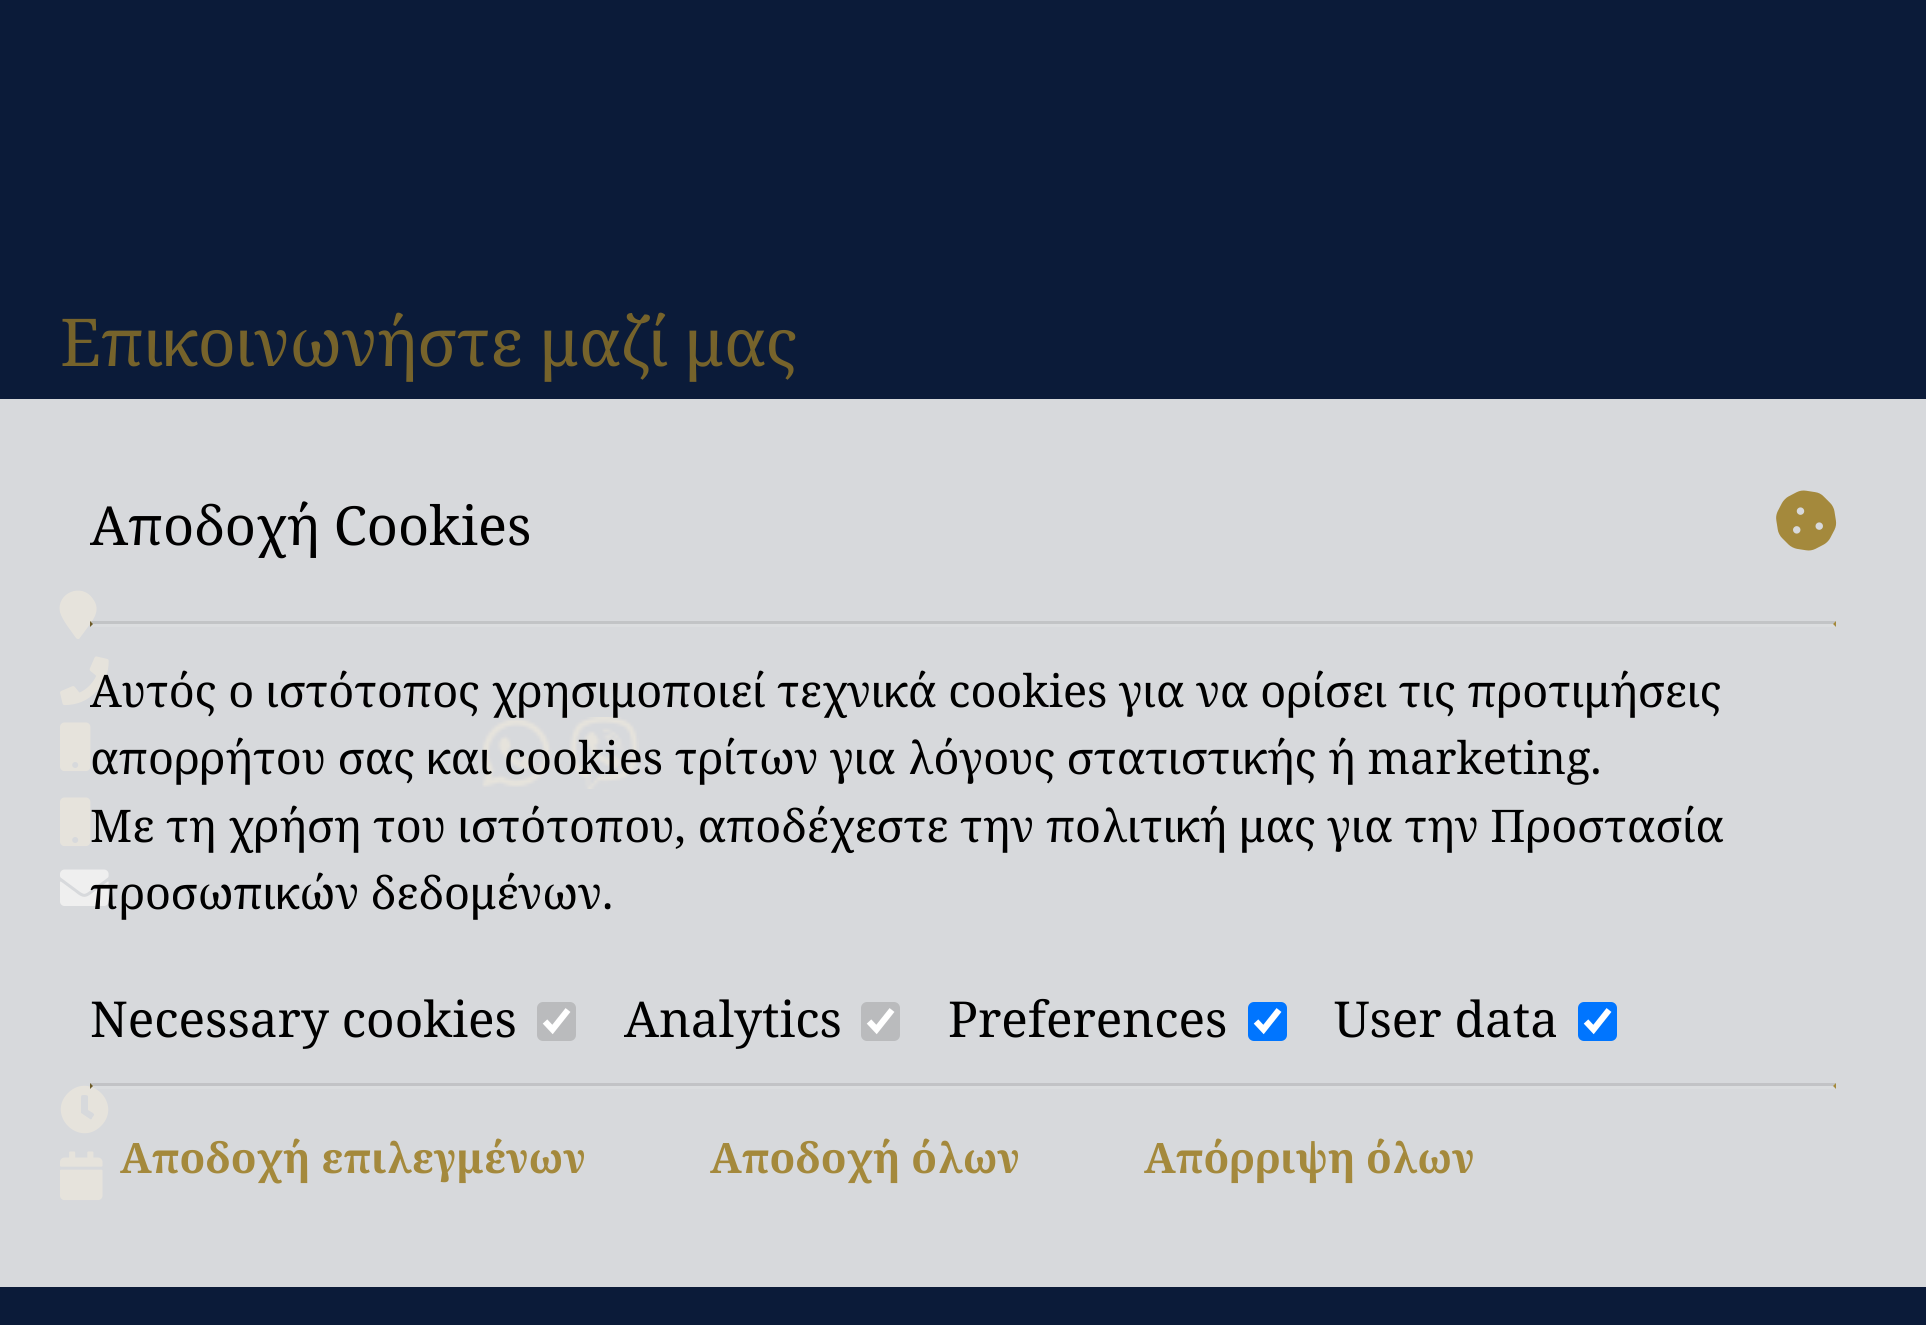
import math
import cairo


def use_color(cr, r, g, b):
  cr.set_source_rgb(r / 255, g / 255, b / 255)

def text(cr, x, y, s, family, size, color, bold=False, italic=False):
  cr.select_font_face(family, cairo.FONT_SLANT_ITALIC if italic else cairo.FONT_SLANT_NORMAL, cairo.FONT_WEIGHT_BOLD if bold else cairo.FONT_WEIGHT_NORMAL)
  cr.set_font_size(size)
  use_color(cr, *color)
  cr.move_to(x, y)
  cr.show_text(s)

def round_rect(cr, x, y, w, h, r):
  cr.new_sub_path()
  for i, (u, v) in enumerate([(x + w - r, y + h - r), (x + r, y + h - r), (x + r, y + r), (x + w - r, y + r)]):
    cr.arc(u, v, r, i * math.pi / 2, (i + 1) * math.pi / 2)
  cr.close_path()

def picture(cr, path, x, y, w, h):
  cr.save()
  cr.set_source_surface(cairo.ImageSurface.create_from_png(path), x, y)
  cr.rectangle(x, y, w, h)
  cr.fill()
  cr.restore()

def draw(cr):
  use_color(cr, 11, 27, 57)
  cr.paint()
  use_color(cr, 164, 137, 60)
  cr.new_path()
  cr.move_to(76, 638)
  cr.curve_to(72, 632, 62, 620, 60, 612)
  cr.curve_to(56, 593, 82, 582, 93, 599)
  cr.curve_to(102, 611, 92, 621, 85, 631)
  cr.line_to(79, 639)
  cr.curve_to(78, 639, 77, 639, 76, 638)
  cr.close_path()
  cr.fill()
  picture(cr, "img_01.png", 60, 656, 49, 50)
  picture(cr, "img_02.png", 60, 722, 31, 50)
  picture(cr, "img_03.png", 480, 717, 72, 72)
  picture(cr, "img_04.png", 569, 717, 70, 72)
  picture(cr, "img_02.png", 60, 797, 31, 50)
  picture(cr, "img_05.png", 60, 869, 49, 37)
  cr.new_path()
  cr.move_to(68, 1093)
  cr.curve_to(90, 1071, 123, 1104, 101, 1126)
  cr.curve_to(79, 1148, 46, 1115, 68, 1093)
  cr.close_path()
  cr.move_to(90, 1119)
  cr.curve_to(91, 1120, 92, 1119, 92, 1118)
  cr.curve_to(94, 1115, 95, 1115, 93, 1113)
  cr.line_to(88, 1110)
  cr.line_to(88, 1101)
  cr.curve_to(88, 1097, 89, 1095, 85, 1095)
  cr.curve_to(81, 1095, 81, 1095, 81, 1099)
  cr.line_to(81, 1113)
  cr.close_path()
  cr.fill()
  picture(cr, "img_06.png", 60, 1151, 43, 50)
  cr.set_source_rgba(0.933, 0.933, 0.933, 0.9)
  cr.rectangle(0, 399, 1926, 888)
  cr.fill()
  picture(cr, "img_07.png", 1776, 490, 61, 61)
  cr.set_source_rgba(0, 0, 0, 0.1)
  cr.new_path()
  cr.move_to(90, 621)
  cr.line_to(1836, 621)
  cr.line_to(1833, 624)
  cr.line_to(93, 624)
  cr.close_path()
  cr.fill()
  use_color(cr, 164, 137, 60)
  cr.new_path()
  cr.move_to(1836, 621)
  cr.line_to(1836, 627)
  cr.line_to(1833, 624)
  cr.close_path()
  cr.fill()
  cr.set_source_rgba(1, 1, 1, 0.1)
  cr.new_path()
  cr.move_to(1836, 627)
  cr.line_to(90, 627)
  cr.line_to(93, 624)
  cr.line_to(1833, 624)
  cr.close_path()
  cr.fill()
  use_color(cr, 109, 91, 40)
  cr.new_path()
  cr.move_to(90, 627)
  cr.line_to(90, 621)
  cr.line_to(93, 624)
  cr.close_path()
  cr.fill()
  use_color(cr, 186, 187, 189)
  round_rect(cr, 537, 1002, 39, 39, 6)
  cr.fill()
  cr.new_path()
  cr.move_to(545, 1021.5)
  cr.line_to(552.5, 1029.5)
  cr.line_to(568, 1010)
  use_color(cr, 255, 255, 255)
  cr.set_line_width(6.2)
  cr.stroke()
  use_color(cr, 186, 187, 189)
  round_rect(cr, 861, 1002, 39, 39, 6)
  cr.fill()
  cr.new_path()
  cr.move_to(869, 1021.5)
  cr.line_to(876.5, 1029.5)
  cr.line_to(892, 1010)
  use_color(cr, 255, 255, 255)
  cr.stroke()
  use_color(cr, 0, 117, 255)
  round_rect(cr, 1248, 1002, 39, 39, 6)
  cr.fill()
  cr.new_path()
  cr.move_to(1256, 1021.5)
  cr.line_to(1263.5, 1029.5)
  cr.line_to(1279, 1010)
  use_color(cr, 255, 255, 255)
  cr.stroke()
  use_color(cr, 0, 117, 255)
  round_rect(cr, 1578, 1002, 39, 39, 6)
  cr.fill()
  cr.new_path()
  cr.move_to(1586, 1021.5)
  cr.line_to(1593.5, 1029.5)
  cr.line_to(1609, 1010)
  use_color(cr, 255, 255, 255)
  cr.stroke()
  use_color(cr, 194, 195, 198)
  cr.new_path()
  cr.move_to(90, 1083)
  cr.line_to(1836, 1083)
  cr.line_to(1833, 1086)
  cr.line_to(93, 1086)
  cr.close_path()
  cr.fill()
  use_color(cr, 164, 137, 60)
  cr.new_path()
  cr.move_to(1836, 1083)
  cr.line_to(1836, 1089)
  cr.line_to(1833, 1086)
  cr.close_path()
  cr.fill()
  cr.set_source_rgba(1, 1, 1, 0.1)
  cr.new_path()
  cr.move_to(1836, 1089)
  cr.line_to(90, 1089)
  cr.line_to(93, 1086)
  cr.line_to(1833, 1086)
  cr.close_path()
  cr.fill()
  use_color(cr, 109, 91, 40)
  cr.new_path()
  cr.move_to(90, 1089)
  cr.line_to(90, 1083)
  cr.line_to(93, 1086)
  cr.close_path()
  cr.fill()
  text(cr, 60, 366, "Επικοινωνήστε μαζί μας", "Noto Serif", 66, (118, 99, 43))
  text(cr, 90, 545, "Αποδοχή Cookies", "Noto Serif", 54, (0, 0, 0))
  text(cr, 90, 707, "Αυτός ο ιστότοπος χρησιμοποιεί τεχνικά cookies για να ορίσει τις προτιμήσεις", "Noto Serif", 45, (0, 0, 0))
  text(cr, 90, 774, "απορρήτου σας και cookies τρίτων για λόγους στατιστικής ή marketing.", "Noto Serif", 45, (0, 0, 0))
  text(cr, 90, 842, "Με τη χρήση του ιστότοπου, αποδέχεστε την πολιτική μας για την Προστασία", "Noto Serif", 45, (0, 0, 0))
  text(cr, 90, 909, "προσωπικών δεδομένων.", "Noto Serif", 45, (0, 0, 0))
  text(cr, 90, 1037, "Necessary cookies", "Noto Serif", 49.5, (0, 0, 0))
  text(cr, 624, 1037, "Analytics", "Noto Serif", 49.5, (0, 0, 0))
  text(cr, 948, 1037, "Preferences", "Noto Serif", 49.5, (0, 0, 0))
  text(cr, 1334, 1037, "User data", "Noto Serif", 49.5, (0, 0, 0))
  text(cr, 120, 1173, "Αποδοχή επιλεγμένων", "Noto Serif", 42, (164, 137, 60), bold=True)
  text(cr, 710, 1173, "Αποδοχή όλων", "Noto Serif", 42, (164, 137, 60), bold=True)
  text(cr, 1144, 1173, "Απόρριψη όλων", "Noto Serif", 42, (164, 137, 60), bold=True)


surface = cairo.ImageSurface(cairo.FORMAT_RGB24, 1926, 1325)
cr = cairo.Context(surface)
options = cairo.FontOptions()
options.set_hint_metrics(cairo.HINT_METRICS_OFF)
options.set_hint_style(cairo.HINT_STYLE_NONE)
cr.set_font_options(options)
cr.set_miter_limit(4)
draw(cr)
surface.write_to_png("out.png")
